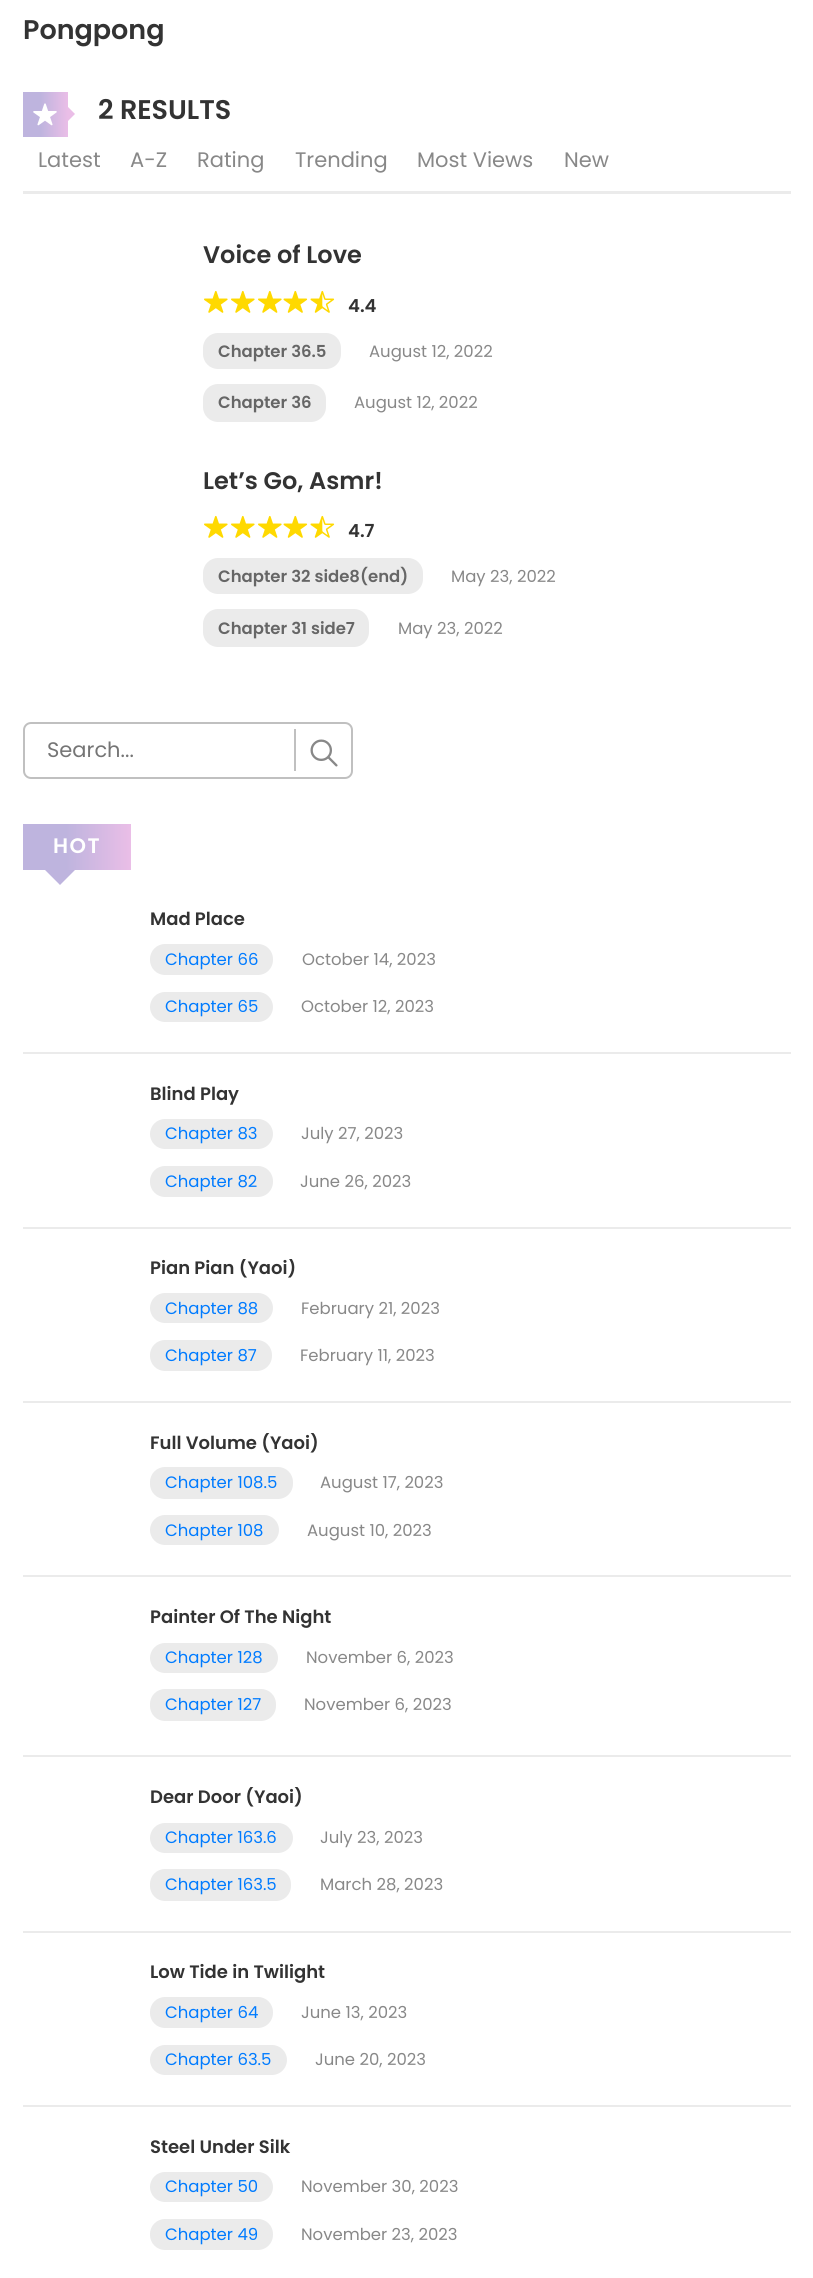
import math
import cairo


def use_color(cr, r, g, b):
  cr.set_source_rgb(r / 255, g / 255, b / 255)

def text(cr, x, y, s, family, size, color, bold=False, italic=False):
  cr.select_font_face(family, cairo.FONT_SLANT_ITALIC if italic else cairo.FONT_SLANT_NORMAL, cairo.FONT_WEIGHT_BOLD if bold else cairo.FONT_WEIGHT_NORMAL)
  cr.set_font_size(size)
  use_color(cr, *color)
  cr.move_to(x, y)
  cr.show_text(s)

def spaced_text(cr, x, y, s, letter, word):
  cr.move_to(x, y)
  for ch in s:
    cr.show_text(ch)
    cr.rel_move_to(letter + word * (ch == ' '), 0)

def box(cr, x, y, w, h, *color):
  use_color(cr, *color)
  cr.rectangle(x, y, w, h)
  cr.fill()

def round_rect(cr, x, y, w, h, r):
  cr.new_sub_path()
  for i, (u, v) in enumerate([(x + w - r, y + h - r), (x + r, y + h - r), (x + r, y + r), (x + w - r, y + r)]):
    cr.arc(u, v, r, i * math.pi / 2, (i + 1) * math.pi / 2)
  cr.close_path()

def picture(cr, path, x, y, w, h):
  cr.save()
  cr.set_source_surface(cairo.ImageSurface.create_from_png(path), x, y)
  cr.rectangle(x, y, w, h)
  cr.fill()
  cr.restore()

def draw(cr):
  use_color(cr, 255, 255, 255)
  cr.paint()
  box(cr, 23, 191, 768, 3, 235, 235, 235)
  gradient = cairo.LinearGradient(22, 114, 68, 114)
  gradient.add_color_stop_rgba(0.4, 0.745, 0.706, 0.871, 1)
  gradient.add_color_stop_rgba(1, 0.918, 0.745, 0.906, 1)
  cr.set_source(gradient)
  cr.rectangle(23, 92, 45, 45)
  cr.fill()
  picture(cr, "img_01.png", 33, 103, 24, 23)
  use_color(cr, 234, 190, 231)
  cr.new_path()
  cr.move_to(67.5, 121.5)
  cr.line_to(67.5, 106.5)
  cr.line_to(75, 114)
  cr.close_path()
  cr.fill()
  picture(cr, "img_02.png", 204, 290, 24, 23)
  picture(cr, "img_02.png", 231, 290, 24, 23)
  picture(cr, "img_02.png", 258, 290, 24, 23)
  picture(cr, "img_03.png", 283, 290, 25, 23)
  picture(cr, "img_04.png", 310, 290, 25, 23)
  use_color(cr, 235, 235, 235)
  round_rect(cr, 203, 333, 138, 36, 15)
  cr.fill()
  round_rect(cr, 203, 384, 123, 38, 15)
  cr.fill()
  picture(cr, "img_02.png", 204, 515, 24, 23)
  picture(cr, "img_02.png", 231, 515, 24, 23)
  picture(cr, "img_02.png", 258, 515, 24, 23)
  picture(cr, "img_03.png", 283, 515, 25, 23)
  picture(cr, "img_04.png", 310, 515, 25, 23)
  round_rect(cr, 203, 558, 220, 36, 15)
  cr.fill()
  round_rect(cr, 203, 609, 166, 38, 15)
  cr.fill()
  round_rect(cr, 24, 723, 328, 55, 7)
  use_color(cr, 192, 192, 192)
  cr.stroke()
  box(cr, 294, 729, 2, 42, 192, 192, 192)
  picture(cr, "img_05.png", 310, 739, 28, 28)
  gradient = cairo.LinearGradient(23, 847, 131, 847)
  gradient.add_color_stop_rgba(0.4, 0.745, 0.706, 0.871, 1)
  gradient.add_color_stop_rgba(1, 0.918, 0.745, 0.906, 1)
  cr.set_source(gradient)
  cr.rectangle(23, 824, 108, 46)
  cr.fill()
  use_color(cr, 190, 180, 222)
  cr.new_path()
  cr.move_to(45, 870)
  cr.line_to(75, 870)
  cr.line_to(60, 885)
  cr.close_path()
  cr.fill()
  box(cr, 23, 1052, 768, 2, 235, 235, 235)
  round_rect(cr, 150, 944, 123, 31, 15)
  cr.fill()
  round_rect(cr, 150, 992, 123, 30, 15)
  cr.fill()
  box(cr, 23, 1227, 768, 2, 235, 235, 235)
  round_rect(cr, 150, 1119, 123, 30, 15)
  cr.fill()
  round_rect(cr, 150, 1166, 123, 31, 15)
  cr.fill()
  box(cr, 23, 1401, 768, 2, 235, 235, 235)
  round_rect(cr, 150, 1293, 123, 30, 15)
  cr.fill()
  round_rect(cr, 150, 1340, 122, 31, 15)
  cr.fill()
  box(cr, 23, 1575, 768, 2, 235, 235, 235)
  round_rect(cr, 150, 1467, 143, 32, 15)
  cr.fill()
  round_rect(cr, 150, 1515, 129, 30, 15)
  cr.fill()
  box(cr, 23, 1755, 768, 2, 235, 235, 235)
  round_rect(cr, 150, 1643, 128, 30, 15)
  cr.fill()
  round_rect(cr, 150, 1689, 126, 32, 15)
  cr.fill()
  box(cr, 23, 1931, 768, 2, 235, 235, 235)
  round_rect(cr, 150, 1823, 143, 30, 15)
  cr.fill()
  round_rect(cr, 150, 1869, 141, 32, 15)
  cr.fill()
  box(cr, 23, 2105, 768, 2, 235, 235, 235)
  round_rect(cr, 150, 1997, 123, 31, 15)
  cr.fill()
  round_rect(cr, 150, 2045, 137, 30, 15)
  cr.fill()
  round_rect(cr, 150, 2172, 123, 30, 15)
  cr.fill()
  round_rect(cr, 150, 2219, 123, 31, 15)
  cr.fill()
  text(cr, 23, 39, "Pongpong", "Poppins SemiBold", 27, (51, 51, 51))
  text(cr, 98, 119, "2 RESULTS", "Poppins SemiBold", 27, (51, 51, 51))
  text(cr, 38, 167, "Latest", "Poppins", 21, (136, 136, 136))
  text(cr, 130, 167, "A-Z", "Poppins", 21, (136, 136, 136))
  text(cr, 197, 167, "Rating", "Poppins", 21, (136, 136, 136))
  text(cr, 295, 167, "Trending", "Poppins", 21, (136, 136, 136))
  text(cr, 417, 167, "Most Views", "Poppins", 21, (136, 136, 136))
  text(cr, 564, 167, "New", "Poppins", 21, (136, 136, 136))
  text(cr, 203, 263, "Voice of Love", "Poppins SemiBold", 24, (51, 51, 51))
  text(cr, 348, 312, "4.4", "Poppins SemiBold", 18, (51, 51, 51))
  text(cr, 218, 357, "Chapter 36.5", "Poppins SemiBold", 16.5, (102, 102, 102))
  text(cr, 369, 357, "August 12, 2022", "Poppins", 16.5, (136, 136, 136))
  text(cr, 218, 408, "Chapter 36", "Poppins SemiBold", 16.5, (102, 102, 102))
  text(cr, 354, 408, "August 12, 2022", "Poppins", 16.5, (136, 136, 136))
  text(cr, 203, 489, "Let’s Go, Asmr!", "Poppins SemiBold", 24, (51, 51, 51))
  text(cr, 348, 537, "4.7", "Poppins SemiBold", 18, (51, 51, 51))
  text(cr, 218, 582, "Chapter 32 side8(end)", "Poppins SemiBold", 16.5, (102, 102, 102))
  text(cr, 451, 582, "May 23, 2022", "Poppins", 16.5, (136, 136, 136))
  text(cr, 218, 634, "Chapter 31 side7", "Poppins SemiBold", 16.5, (102, 102, 102))
  text(cr, 398, 634, "May 23, 2022", "Poppins", 16.5, (136, 136, 136))
  text(cr, 47, 757, "Search...", "Poppins", 21, (117, 117, 117))
  cr.select_font_face("Poppins SemiBold")
  use_color(cr, 255, 255, 255)
  spaced_text(cr, 53, 853, "HOT", 1.5, 0)
  text(cr, 150, 925, "Mad Place", "Poppins SemiBold", 18, (51, 51, 51))
  text(cr, 165, 965, "Chapter 66", "Poppins", 16.5, (0, 123, 255))
  text(cr, 302, 965, "October 14, 2023", "Poppins", 16.5, (136, 136, 136))
  text(cr, 165, 1012, "Chapter 65", "Poppins", 16.5, (0, 123, 255))
  text(cr, 301, 1012, "October 12, 2023", "Poppins", 16.5, (136, 136, 136))
  text(cr, 150, 1100, "Blind Play", "Poppins SemiBold", 18, (51, 51, 51))
  text(cr, 165, 1139, "Chapter 83", "Poppins", 16.5, (0, 123, 255))
  text(cr, 301, 1139, "July 27, 2023", "Poppins", 16.5, (136, 136, 136))
  text(cr, 165, 1187, "Chapter 82", "Poppins", 16.5, (0, 123, 255))
  text(cr, 300, 1187, "June 26, 2023", "Poppins", 16.5, (136, 136, 136))
  cr.save()
  cr.rectangle(150, 1259, 641, 112)
  cr.clip()
  text(cr, 150, 1274, "Pian Pian (Yaoi)", "Poppins SemiBold", 18, (51, 51, 51))
  cr.restore()
  text(cr, 165, 1314, "Chapter 88", "Poppins", 16.5, (0, 123, 255))
  text(cr, 301, 1314, "February 21, 2023", "Poppins", 16.5, (136, 136, 136))
  text(cr, 165, 1361, "Chapter 87", "Poppins", 16.5, (0, 123, 255))
  text(cr, 300, 1361, "February 11, 2023", "Poppins", 16.5, (136, 136, 136))
  cr.save()
  cr.rectangle(150, 1433, 641, 112)
  cr.clip()
  text(cr, 150, 1449, "Full Volume (Yaoi)", "Poppins SemiBold", 18, (51, 51, 51))
  cr.restore()
  text(cr, 165, 1488, "Chapter 108.5", "Poppins", 16.5, (0, 123, 255))
  text(cr, 320, 1488, "August 17, 2023", "Poppins", 16.5, (136, 136, 136))
  text(cr, 165, 1536, "Chapter 108", "Poppins", 16.5, (0, 123, 255))
  text(cr, 307, 1536, "August 10, 2023", "Poppins", 16.5, (136, 136, 136))
  text(cr, 150, 1623, "Painter Of The Night", "Poppins SemiBold", 18, (51, 51, 51))
  text(cr, 165, 1663, "Chapter 128", "Poppins", 16.5, (0, 123, 255))
  text(cr, 306, 1663, "November 6, 2023", "Poppins", 16.5, (136, 136, 136))
  text(cr, 165, 1710, "Chapter 127", "Poppins", 16.5, (0, 123, 255))
  text(cr, 304, 1710, "November 6, 2023", "Poppins", 16.5, (136, 136, 136))
  cr.save()
  cr.rectangle(150, 1787, 641, 114)
  cr.clip()
  text(cr, 150, 1803, "Dear Door (Yaoi)", "Poppins SemiBold", 18, (51, 51, 51))
  cr.restore()
  text(cr, 165, 1843, "Chapter 163.6", "Poppins", 16.5, (0, 123, 255))
  text(cr, 320, 1843, "July 23, 2023", "Poppins", 16.5, (136, 136, 136))
  text(cr, 165, 1890, "Chapter 163.5", "Poppins", 16.5, (0, 123, 255))
  text(cr, 320, 1890, "March 28, 2023", "Poppins", 16.5, (136, 136, 136))
  text(cr, 150, 1978, "Low Tide in Twilight", "Poppins SemiBold", 18, (51, 51, 51))
  text(cr, 165, 2018, "Chapter 64", "Poppins", 16.5, (0, 123, 255))
  text(cr, 301, 2018, "June 13, 2023", "Poppins", 16.5, (136, 136, 136))
  text(cr, 165, 2065, "Chapter 63.5", "Poppins", 16.5, (0, 123, 255))
  text(cr, 315, 2065, "June 20, 2023", "Poppins", 16.5, (136, 136, 136))
  text(cr, 150, 2153, "Steel Under Silk", "Poppins SemiBold", 18, (51, 51, 51))
  text(cr, 165, 2192, "Chapter 50", "Poppins", 16.5, (0, 123, 255))
  text(cr, 301, 2192, "November 30, 2023", "Poppins", 16.5, (136, 136, 136))
  text(cr, 165, 2240, "Chapter 49", "Poppins", 16.5, (0, 123, 255))
  text(cr, 301, 2240, "November 23, 2023", "Poppins", 16.5, (136, 136, 136))


surface = cairo.ImageSurface(cairo.FORMAT_RGB24, 813, 2278)
cr = cairo.Context(surface)
options = cairo.FontOptions()
options.set_hint_metrics(cairo.HINT_METRICS_OFF)
options.set_hint_style(cairo.HINT_STYLE_NONE)
cr.set_font_options(options)
cr.set_miter_limit(4)
draw(cr)
surface.write_to_png("out.png")
